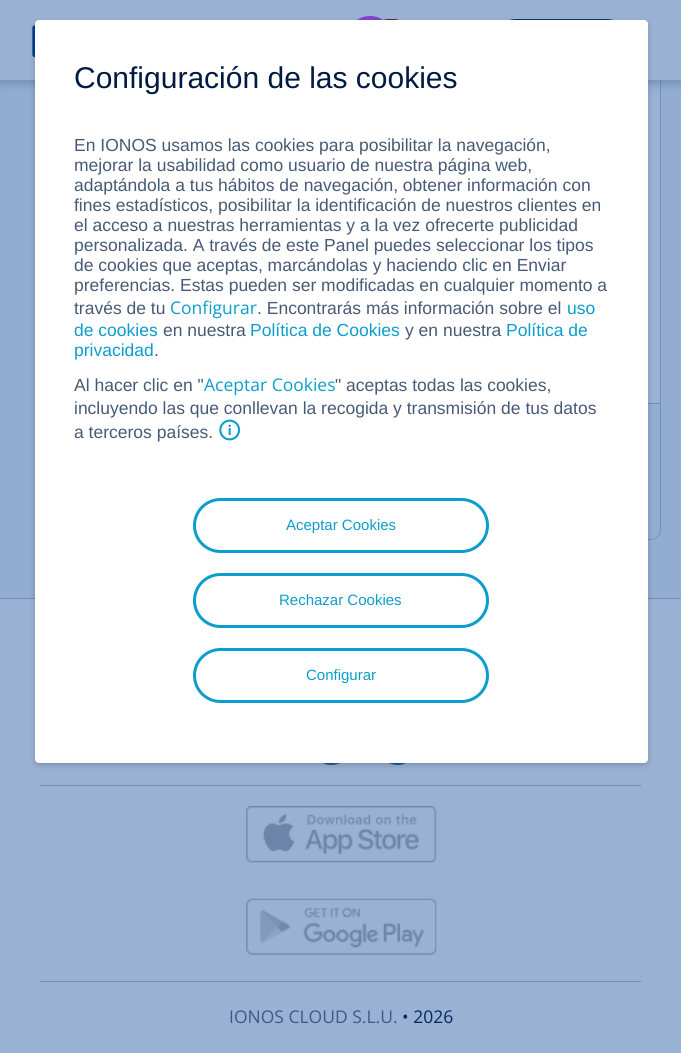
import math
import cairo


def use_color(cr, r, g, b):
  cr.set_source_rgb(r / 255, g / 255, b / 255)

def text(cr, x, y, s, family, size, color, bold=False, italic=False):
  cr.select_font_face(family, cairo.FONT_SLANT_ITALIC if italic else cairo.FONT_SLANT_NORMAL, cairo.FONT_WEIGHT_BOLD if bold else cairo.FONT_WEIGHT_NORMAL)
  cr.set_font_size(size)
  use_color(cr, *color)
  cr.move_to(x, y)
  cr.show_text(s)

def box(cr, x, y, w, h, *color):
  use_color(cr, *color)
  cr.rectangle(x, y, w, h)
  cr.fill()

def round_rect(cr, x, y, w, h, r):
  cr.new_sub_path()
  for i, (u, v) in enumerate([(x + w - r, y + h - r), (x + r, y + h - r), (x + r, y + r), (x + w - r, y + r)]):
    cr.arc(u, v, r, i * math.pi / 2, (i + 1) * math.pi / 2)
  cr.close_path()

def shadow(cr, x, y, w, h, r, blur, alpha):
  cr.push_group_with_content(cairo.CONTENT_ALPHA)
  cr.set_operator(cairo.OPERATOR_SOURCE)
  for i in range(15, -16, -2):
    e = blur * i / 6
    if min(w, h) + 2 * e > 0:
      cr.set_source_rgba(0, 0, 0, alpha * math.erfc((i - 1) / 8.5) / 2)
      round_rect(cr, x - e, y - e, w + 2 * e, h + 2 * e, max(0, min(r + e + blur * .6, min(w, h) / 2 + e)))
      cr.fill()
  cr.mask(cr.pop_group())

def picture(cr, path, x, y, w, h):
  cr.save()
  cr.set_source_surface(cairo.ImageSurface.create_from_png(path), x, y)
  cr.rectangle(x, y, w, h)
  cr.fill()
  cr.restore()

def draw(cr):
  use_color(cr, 146, 173, 207)
  cr.paint()
  use_color(cr, 153, 177, 210)
  round_rect(cr, 60.5, -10.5, 600, 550, 9.5)
  cr.fill_preserve()
  use_color(cr, 113, 144, 184)
  cr.set_line_width(1)
  cr.stroke()
  box(cr, 648, 403, 12, 1, 113, 144, 184)
  use_color(cr, 146, 173, 207)
  cr.new_path()
  cr.move_to(61, 404)
  cr.line_to(660, 404)
  cr.line_to(660, 530)
  cr.curve_to(660, 535, 656, 539, 651, 539)
  cr.line_to(70, 539)
  cr.curve_to(65, 539, 61, 535, 61, 530)
  cr.close_path()
  cr.fill()
  use_color(cr, 68, 101, 147)
  shadow(cr, 0, 3, 681, 80, 0, 5, 0.5)
  box(cr, 0, 0, 681, 80, 153, 177, 210)
  picture(cr, "img_02.png", 32, 25, 3, 33)
  use_color(cr, 129, 66, 204)
  cr.arc(370, 40, 24, 0, 2 * math.pi)
  cr.fill()
  use_color(cr, 120, 30, 57)
  round_rect(cr, 378, 19, 26, 19, 9.5)
  cr.fill()
  round_rect(cr, 496.5, 20.5, 130, 39, 19.5)
  use_color(cr, 7, 50, 117)
  cr.set_line_width(3)
  cr.stroke()
  box(cr, 0, 598, 681, 1, 113, 144, 184)
  box(cr, 0, 599, 681, 454, 153, 177, 210)
  picture(cr, "img_03.png", 322, 763, 18, 2)
  picture(cr, "img_04.png", 389, 763, 17, 2)
  use_color(cr, 0, 0, 0)
  shadow(cr, 35, 23, 613, 742, 4, 3, 0.2)
  use_color(cr, 255, 255, 255)
  round_rect(cr, 35, 20, 613, 743, 4)
  cr.fill()
  picture(cr, "img_01.png", 219, 419, 22, 22)
  round_rect(cr, 194.5, 499.5, 293, 52, 26)
  use_color(cr, 11, 157, 204)
  cr.stroke()
  round_rect(cr, 194.5, 574.5, 293, 52, 26)
  cr.stroke()
  round_rect(cr, 194.5, 649.5, 293, 52, 26)
  cr.stroke()
  box(cr, 40, 785, 601, 1, 113, 144, 184)
  picture(cr, "img_05.png", 246, 806, 191, 57)
  picture(cr, "img_06.png", 246, 898, 191, 57)
  box(cr, 40, 981, 601, 1, 113, 144, 184)
  text(cr, 74, 88, "Configuración de las cookies", "Liberation Sans", 30, (0, 27, 65))
  text(cr, 74, 151, "En IONOS usamos las cookies para posibilitar la navegación,", "Liberation Sans", 17.5, (70, 90, 117))
  text(cr, 74, 171, "mejorar la usabilidad como usuario de nuestra página web,", "Liberation Sans", 17.5, (70, 90, 117))
  text(cr, 74, 191, "adaptándola a tus hábitos de navegación, obtener información con", "Liberation Sans", 17.5, (70, 90, 117))
  text(cr, 74, 211, "fines estadísticos, posibilitar la identificación de nuestros clientes en", "Liberation Sans", 17.5, (70, 90, 117))
  text(cr, 74, 231, "el acceso a nuestras herramientas y a la vez ofrecerte publicidad", "Liberation Sans", 17.5, (70, 90, 117))
  text(cr, 74, 251, "personalizada. A través de este Panel puedes seleccionar los tipos", "Liberation Sans", 17.5, (70, 90, 117))
  text(cr, 74, 271, "de cookies que aceptas, marcándolas y haciendo clic en Enviar", "Liberation Sans", 17.5, (70, 90, 117))
  text(cr, 74, 291, "preferencias. Estas pueden ser modificadas en cualquier momento a", "Liberation Sans", 17.5, (70, 90, 117))
  text(cr, 74, 314, "través de tu", "Liberation Sans", 17.5, (70, 90, 117))
  text(cr, 170, 314, "Configurar", "Open Sans", 17.5, (11, 157, 204))
  text(cr, 257, 314, ". Encontrarás más información sobre el", "Liberation Sans", 17.5, (70, 90, 117))
  text(cr, 567, 314, "uso", "Liberation Sans", 17.5, (11, 157, 204))
  text(cr, 74, 336, "de cookies", "Liberation Sans", 17.5, (11, 157, 204))
  text(cr, 163, 336, "en nuestra", "Liberation Sans", 17.5, (70, 90, 117))
  text(cr, 250, 336, "Política de Cookies", "Liberation Sans", 17.5, (11, 157, 204))
  text(cr, 405, 336, "y en nuestra", "Liberation Sans", 17.5, (70, 90, 117))
  text(cr, 506, 336, "Política de", "Liberation Sans", 17.5, (11, 157, 204))
  text(cr, 74, 356, "privacidad", "Liberation Sans", 17.5, (11, 157, 204))
  text(cr, 154, 356, ".", "Liberation Sans", 17.5, (70, 90, 117))
  text(cr, 74, 391, "Al hacer clic en \"", "Liberation Sans", 17.5, (70, 90, 117))
  text(cr, 204, 391, "Aceptar Cookies", "Open Sans", 17.5, (11, 157, 204))
  text(cr, 335, 391, "\" aceptas todas las cookies,", "Liberation Sans", 17.5, (70, 90, 117))
  text(cr, 74, 414, "incluyendo las que conllevan la recogida y transmisión de tus datos", "Liberation Sans", 17.5, (70, 90, 117))
  text(cr, 74, 438, "a terceros países.", "Liberation Sans", 17.5, (70, 90, 117))
  text(cr, 286, 530, "Aceptar Cookies", "Liberation Sans", 15, (11, 157, 204))
  text(cr, 279, 605, "Rechazar Cookies", "Liberation Sans", 15, (11, 157, 204))
  text(cr, 306, 680, "Configurar", "Liberation Sans", 15, (11, 157, 204))
  text(cr, 229, 1023, "IONOS CLOUD S.L.U.", "Open Sans", 17.5, (60, 90, 134))
  text(cr, 402, 1023, "• 2026", "Open Sans", 17.5, (0, 41, 96))


surface = cairo.ImageSurface(cairo.FORMAT_RGB24, 681, 1053)
cr = cairo.Context(surface)
options = cairo.FontOptions()
options.set_hint_metrics(cairo.HINT_METRICS_OFF)
options.set_hint_style(cairo.HINT_STYLE_NONE)
cr.set_font_options(options)
cr.set_miter_limit(4)
draw(cr)
surface.write_to_png("out.png")
